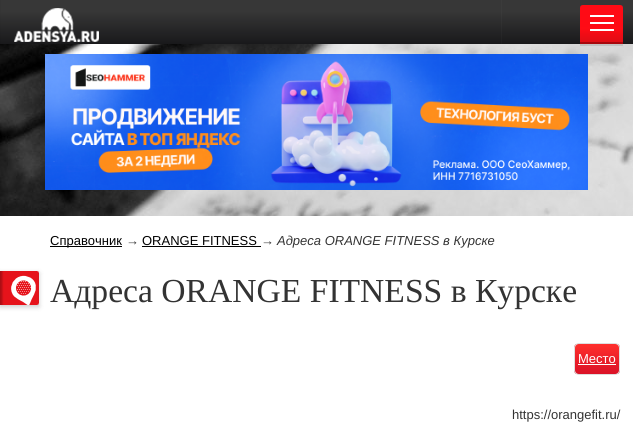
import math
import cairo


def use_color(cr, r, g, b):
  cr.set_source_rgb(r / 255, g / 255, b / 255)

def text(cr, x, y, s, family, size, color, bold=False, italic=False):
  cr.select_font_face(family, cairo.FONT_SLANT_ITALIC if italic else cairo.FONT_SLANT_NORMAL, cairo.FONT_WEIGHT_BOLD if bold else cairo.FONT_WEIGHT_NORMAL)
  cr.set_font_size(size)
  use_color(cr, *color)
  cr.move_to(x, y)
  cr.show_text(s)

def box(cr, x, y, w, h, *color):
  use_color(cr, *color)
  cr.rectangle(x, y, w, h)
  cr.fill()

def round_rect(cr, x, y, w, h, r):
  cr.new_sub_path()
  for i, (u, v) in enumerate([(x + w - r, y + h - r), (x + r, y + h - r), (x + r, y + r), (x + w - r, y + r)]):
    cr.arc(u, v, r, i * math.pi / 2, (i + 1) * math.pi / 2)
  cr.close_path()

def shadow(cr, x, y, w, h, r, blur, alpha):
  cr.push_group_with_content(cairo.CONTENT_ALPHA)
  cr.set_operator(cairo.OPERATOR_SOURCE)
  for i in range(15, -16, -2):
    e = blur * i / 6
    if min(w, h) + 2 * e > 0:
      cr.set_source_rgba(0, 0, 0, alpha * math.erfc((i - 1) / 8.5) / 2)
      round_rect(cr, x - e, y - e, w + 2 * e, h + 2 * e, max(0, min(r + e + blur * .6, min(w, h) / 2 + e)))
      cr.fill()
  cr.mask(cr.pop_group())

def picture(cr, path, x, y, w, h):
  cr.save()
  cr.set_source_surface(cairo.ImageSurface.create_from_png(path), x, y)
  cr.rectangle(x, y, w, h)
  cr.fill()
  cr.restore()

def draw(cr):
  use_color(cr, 255, 255, 255)
  cr.paint()
  picture(cr, "img_01.png", 0, 0, 633, 216)
  picture(cr, "img_02.png", 0, 0, 633, 44)
  picture(cr, "img_03.png", 14, 8, 85, 34)
  picture(cr, "img_04.png", 580, 5, 43, 41)
  picture(cr, "img_05.png", 45, 54, 543, 136)
  box(cr, 50, 246, 72, 1, 0, 0, 0)
  box(cr, 142, 246, 119, 1, 0, 0, 0)
  use_color(cr, 0, 0, 0)
  shadow(cr, 0, 273, 39, 34, 0, 2.5, 0.2)
  picture(cr, "img_06.png", 0, 271, 39, 34)
  cr.save()
  round_rect(cr, 574, 343, 46, 32, 5)
  cr.clip()
  gradient = cairo.LinearGradient(597, 344, 597, 374)
  gradient.add_color_stop_rgba(0, 1, 0.184, 0.173, 1)
  gradient.add_color_stop_rgba(1, 0.855, 0.071, 0.153, 1)
  cr.set_source(gradient)
  cr.rectangle(574, 344, 46, 30)
  cr.fill()
  cr.restore()
  round_rect(cr, 574.5, 343.5, 45, 31, 4.5)
  use_color(cr, 222, 222, 222)
  cr.set_line_width(1)
  cr.stroke()
  box(cr, 578, 364, 38, 1, 255, 255, 255)
  text(cr, 50, 245, "Справочник", "Liberation Sans", 13, (0, 0, 0))
  text(cr, 126, 245, "→", "Liberation Sans", 13, (51, 51, 51))
  text(cr, 142, 245, "ORANGE FITNESS", "Liberation Sans", 13, (0, 0, 0))
  text(cr, 261, 245, "→", "Liberation Sans", 13, (51, 51, 51))
  text(cr, 277, 245, "Адреса ORANGE FITNESS в Курске", "Liberation Sans", 13, (51, 51, 51), italic=True)
  text(cr, 50, 302, "Адреса ORANGE FITNESS в Курске", "Liberation Serif", 33.6, (51, 51, 51))
  text(cr, 578, 363, "Место", "Liberation Sans", 13, (255, 255, 255))
  text(cr, 512, 419, "https://orangefit.ru/", "Liberation Sans", 13, (51, 51, 51))


surface = cairo.ImageSurface(cairo.FORMAT_RGB24, 633, 436)
cr = cairo.Context(surface)
options = cairo.FontOptions()
options.set_hint_metrics(cairo.HINT_METRICS_OFF)
options.set_hint_style(cairo.HINT_STYLE_NONE)
cr.set_font_options(options)
cr.set_miter_limit(4)
draw(cr)
surface.write_to_png("out.png")
